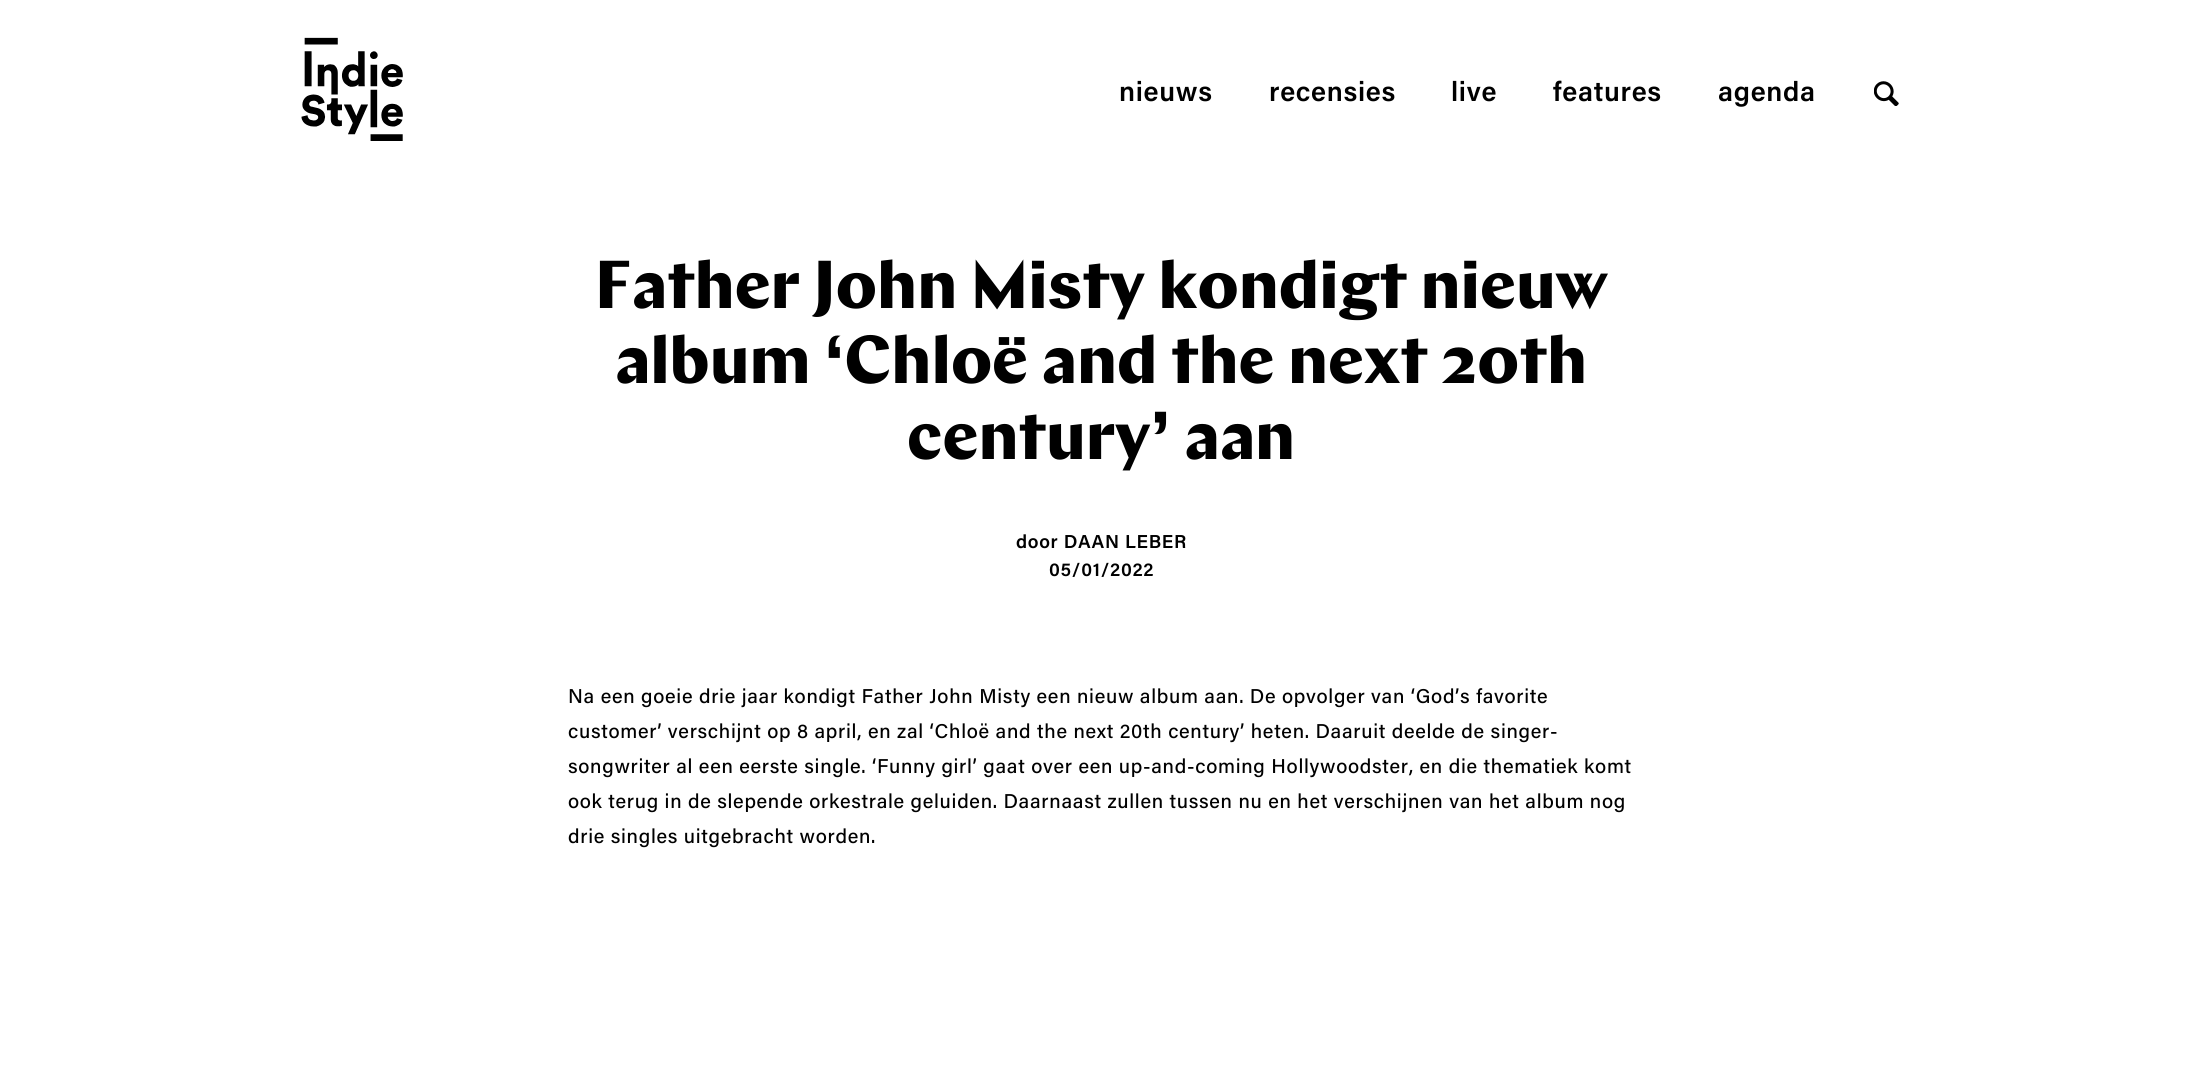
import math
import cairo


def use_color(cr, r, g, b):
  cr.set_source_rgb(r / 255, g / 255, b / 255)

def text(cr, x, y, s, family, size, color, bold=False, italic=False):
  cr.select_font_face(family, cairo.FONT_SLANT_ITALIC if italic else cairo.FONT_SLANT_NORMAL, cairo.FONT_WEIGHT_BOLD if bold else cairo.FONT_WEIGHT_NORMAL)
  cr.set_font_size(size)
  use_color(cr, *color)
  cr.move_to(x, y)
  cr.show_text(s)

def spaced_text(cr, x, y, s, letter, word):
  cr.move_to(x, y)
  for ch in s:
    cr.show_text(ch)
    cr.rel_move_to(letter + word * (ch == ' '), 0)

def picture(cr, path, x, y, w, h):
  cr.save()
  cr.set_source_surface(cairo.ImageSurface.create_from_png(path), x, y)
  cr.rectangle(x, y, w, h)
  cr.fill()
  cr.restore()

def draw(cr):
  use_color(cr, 255, 255, 255)
  cr.paint()
  picture(cr, "img_01.png", 301, 37, 102, 104)
  picture(cr, "img_02.png", 1874, 81, 25, 25)
  cr.select_font_face("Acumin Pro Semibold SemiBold")
  cr.set_font_size(27.5)
  use_color(cr, 0, 0, 0)
  spaced_text(cr, 1119, 101, "nieuws", 0.7, 0)
  spaced_text(cr, 1269, 101, "recensies", 0.7, 0)
  spaced_text(cr, 1451, 101, "live", 0.7, 0)
  spaced_text(cr, 1553, 101, "features", 0.7, 0)
  spaced_text(cr, 1718, 101, "agenda", 0.7, 0)
  text(cr, 595, 308, "Father John Misty kondigt nieuw", "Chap", 67.5, (0, 0, 0), bold=True)
  text(cr, 615, 383, "album ‘Chloë and the next 20th", "Chap", 67.5, (0, 0, 0), bold=True)
  text(cr, 907, 459, "century’ aan", "Chap", 67.5, (0, 0, 0), bold=True)
  cr.select_font_face("Acumin Pro Semibold SemiBold")
  cr.set_font_size(18.75)
  spaced_text(cr, 1016, 548, "door DAAN LEBER", 0.7, 0)
  spaced_text(cr, 1049, 576, "05/01/2022", 0.7, 0)
  cr.select_font_face("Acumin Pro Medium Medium")
  cr.set_font_size(20)
  spaced_text(cr, 568, 703, "Na een goeie drie jaar kondigt Father John Misty een nieuw album aan. De opvolger van ‘God’s favorite", 0.7, 0)
  spaced_text(cr, 568, 738, "customer’ verschijnt op 8 april, en zal ‘Chloë and the next 20th century’ heten. Daaruit deelde de singer-", 0.7, 0)
  spaced_text(cr, 568, 773, "songwriter al een eerste single. ‘Funny girl’ gaat over een up-and-coming Hollywoodster, en die thematiek komt", 0.7, 0)
  spaced_text(cr, 568, 808, "ook terug in de slepende orkestrale geluiden. Daarnaast zullen tussen nu en het verschijnen van het album nog", 0.7, 0)
  spaced_text(cr, 568, 843, "drie singles uitgebracht worden.", 0.7, 0)


surface = cairo.ImageSurface(cairo.FORMAT_RGB24, 2202, 1070)
cr = cairo.Context(surface)
options = cairo.FontOptions()
options.set_hint_metrics(cairo.HINT_METRICS_OFF)
options.set_hint_style(cairo.HINT_STYLE_NONE)
cr.set_font_options(options)
cr.set_miter_limit(4)
draw(cr)
surface.write_to_png("out.png")
